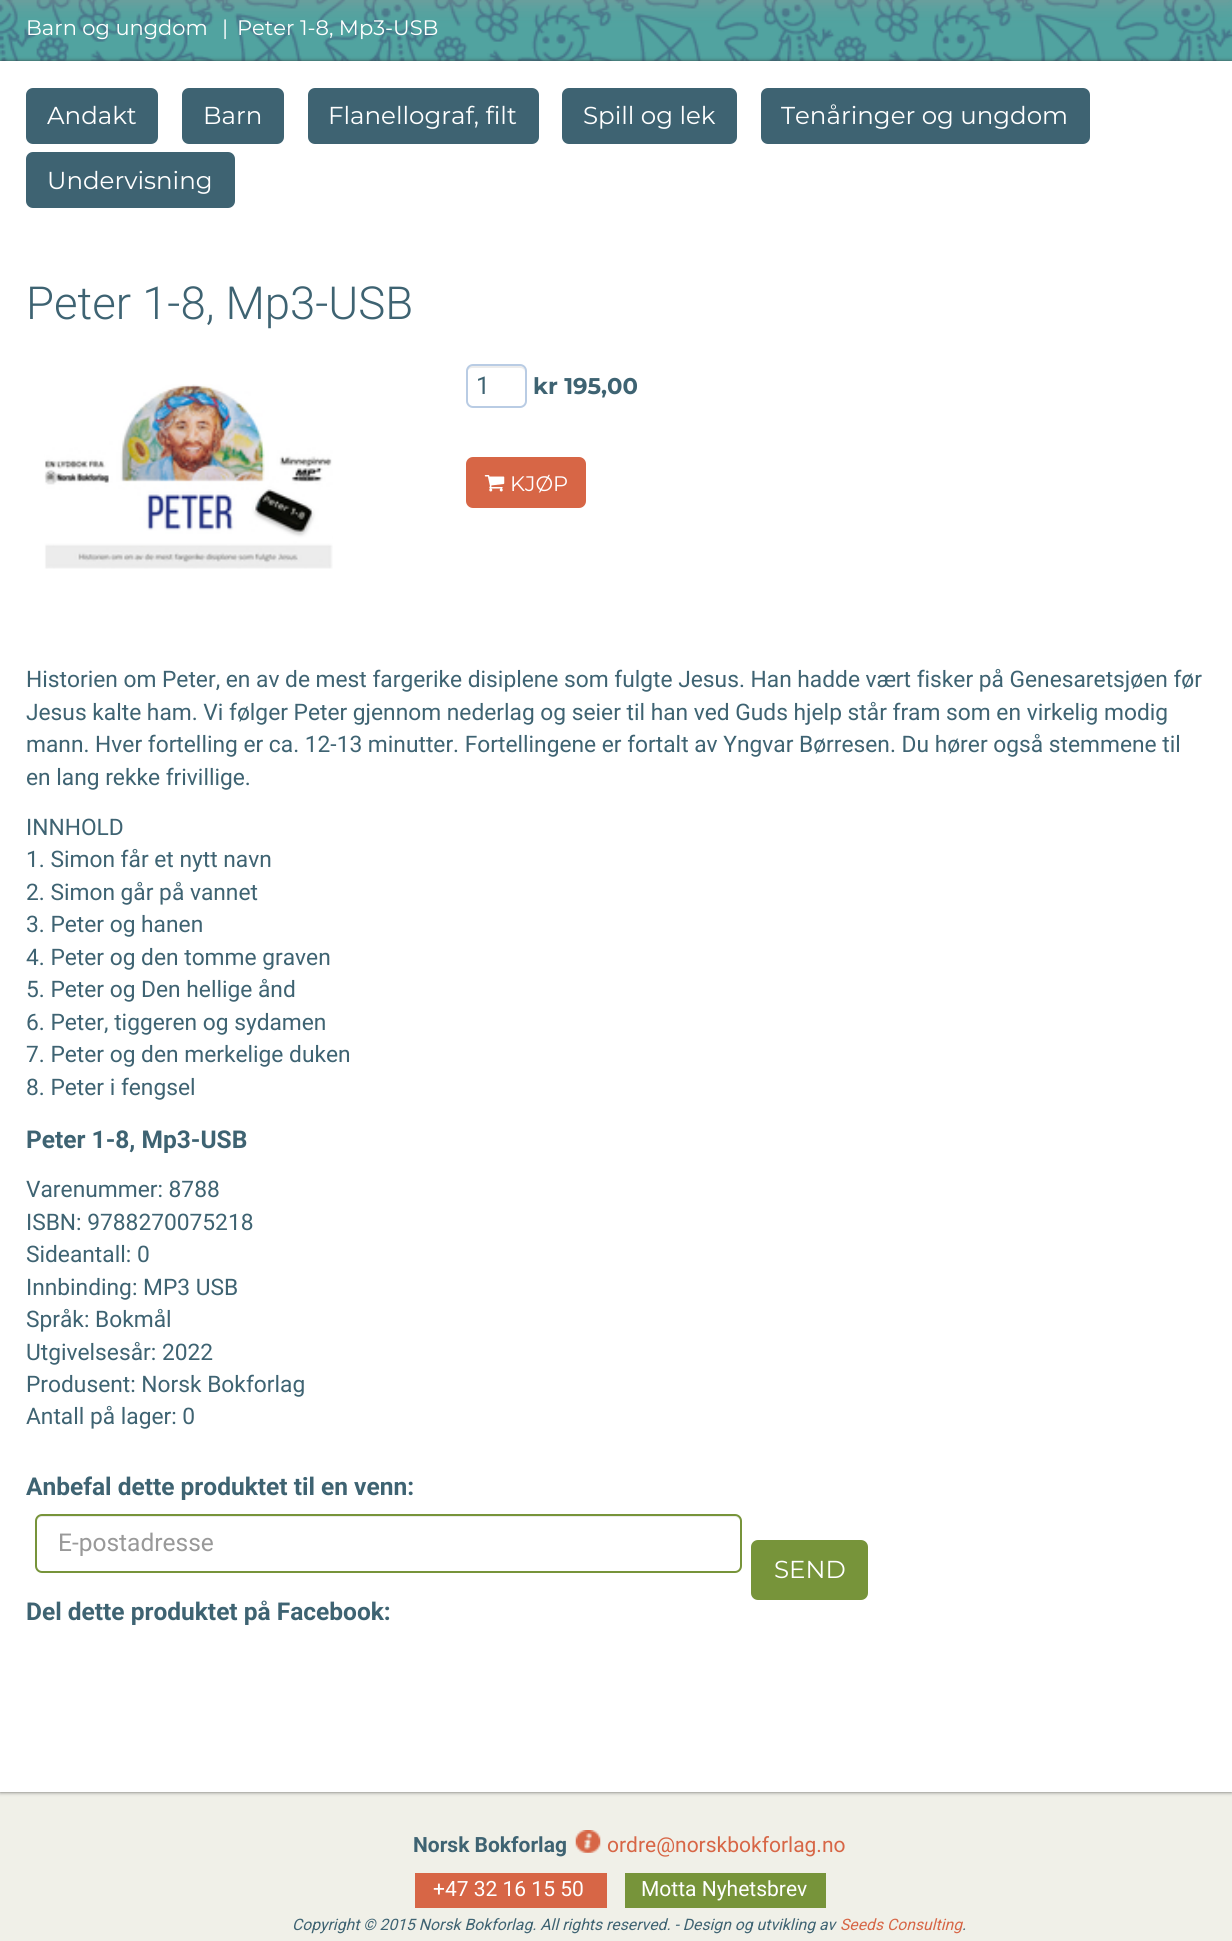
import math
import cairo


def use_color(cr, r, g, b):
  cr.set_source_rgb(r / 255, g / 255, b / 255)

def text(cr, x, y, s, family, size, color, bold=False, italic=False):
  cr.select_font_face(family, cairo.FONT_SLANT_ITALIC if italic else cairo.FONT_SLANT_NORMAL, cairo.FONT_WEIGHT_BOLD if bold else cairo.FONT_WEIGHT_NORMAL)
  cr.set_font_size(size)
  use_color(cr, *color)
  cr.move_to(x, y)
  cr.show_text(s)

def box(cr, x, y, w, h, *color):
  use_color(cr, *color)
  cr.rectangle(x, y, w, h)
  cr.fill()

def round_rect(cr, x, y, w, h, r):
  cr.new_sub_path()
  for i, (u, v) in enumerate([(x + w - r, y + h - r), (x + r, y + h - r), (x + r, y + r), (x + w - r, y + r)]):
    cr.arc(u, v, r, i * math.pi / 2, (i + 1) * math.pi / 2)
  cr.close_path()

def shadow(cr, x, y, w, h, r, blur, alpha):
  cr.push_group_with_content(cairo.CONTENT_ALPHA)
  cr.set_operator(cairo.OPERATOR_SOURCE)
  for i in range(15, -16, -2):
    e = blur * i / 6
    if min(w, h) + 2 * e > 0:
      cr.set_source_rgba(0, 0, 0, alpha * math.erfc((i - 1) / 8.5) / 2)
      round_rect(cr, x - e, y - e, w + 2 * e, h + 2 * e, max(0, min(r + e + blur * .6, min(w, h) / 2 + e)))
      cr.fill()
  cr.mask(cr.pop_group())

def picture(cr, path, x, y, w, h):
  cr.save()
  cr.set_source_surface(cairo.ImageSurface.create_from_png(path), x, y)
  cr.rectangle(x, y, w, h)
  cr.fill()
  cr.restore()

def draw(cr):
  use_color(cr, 240, 240, 232)
  cr.paint()
  picture(cr, "img_01.png", 0, 0, 1232, 61)
  use_color(cr, 152, 150, 150)
  shadow(cr, 0, -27, 1232, 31, 0, 9, 0.5)
  use_color(cr, 50, 50, 50)
  shadow(cr, 0, 61, 1232, 1731, 0, 2, 0.75)
  box(cr, 0, 61, 1232, 1731, 255, 255, 255)
  use_color(cr, 62, 99, 114)
  round_rect(cr, 26, 88, 132, 56, 7)
  cr.fill()
  round_rect(cr, 182, 88, 102, 56, 7)
  cr.fill()
  round_rect(cr, 308, 88, 231, 56, 7)
  cr.fill()
  round_rect(cr, 562, 88, 175, 56, 7)
  cr.fill()
  round_rect(cr, 761, 88, 329, 56, 7)
  cr.fill()
  round_rect(cr, 26, 152, 209, 56, 7)
  cr.fill()
  picture(cr, "img_02.png", 44, 384, 289, 185)
  use_color(cr, 236, 236, 236)
  cr.new_path()
  cr.move_to(472, 368)
  cr.line_to(520, 368)
  cr.curve_to(523, 368, 525, 370, 525, 373)
  cr.curve_to(525, 364, 519, 366, 512, 366)
  cr.line_to(480, 366)
  cr.curve_to(473, 366, 467, 364, 467, 373)
  cr.curve_to(467, 370, 470, 368, 472, 368)
  cr.close_path()
  cr.fill()
  round_rect(cr, 467, 365, 59, 42, 6)
  use_color(cr, 185, 204, 228)
  cr.stroke()
  use_color(cr, 215, 102, 70)
  round_rect(cr, 466, 457, 120, 51, 7)
  cr.fill()
  picture(cr, "img_03.png", 484, 475, 21, 17)
  use_color(cr, 236, 236, 236)
  cr.new_path()
  cr.move_to(42, 1517)
  cr.line_to(735, 1517)
  cr.curve_to(738, 1517, 740, 1520, 740, 1522)
  cr.curve_to(740, 1519, 738, 1516, 735, 1516)
  cr.line_to(42, 1516)
  cr.curve_to(39, 1516, 37, 1519, 37, 1522)
  cr.curve_to(37, 1520, 39, 1517, 42, 1517)
  cr.close_path()
  cr.fill()
  round_rect(cr, 36, 1515, 705, 57, 6)
  use_color(cr, 119, 148, 58)
  cr.stroke()
  round_rect(cr, 751, 1540, 117, 60, 7)
  cr.fill()
  picture(cr, "img_04.png", 575, 1830, 26, 23)
  box(cr, 415, 1873, 192, 35, 215, 102, 70)
  box(cr, 625, 1873, 201, 35, 119, 148, 58)
  text(cr, 26, 35, "Barn og ungdom", "Montserrat", 21, (255, 255, 255))
  text(cr, 222, 35, "|", "Montserrat", 21, (255, 255, 255))
  text(cr, 237, 35, "Peter 1-8, Mp3-USB", "Montserrat", 21, (255, 255, 255))
  text(cr, 47, 124, "Andakt", "Montserrat", 24.5, (255, 255, 255))
  text(cr, 203, 124, "Barn", "Montserrat", 24.5, (255, 255, 255))
  text(cr, 328, 124, "Flanellograf, filt", "Montserrat", 24.5, (255, 255, 255))
  text(cr, 583, 124, "Spill og lek", "Montserrat", 24.5, (255, 255, 255))
  text(cr, 781, 124, "Tenåringer og ungdom", "Montserrat", 24.5, (255, 255, 255))
  text(cr, 47, 189, "Undervisning", "Montserrat", 24.5, (255, 255, 255))
  text(cr, 26, 319, "Peter 1-8, Mp3-USB", "Roboto Light", 45.5, (62, 99, 114))
  text(cr, 476, 394, "1", "Roboto", 24.5, (62, 99, 114))
  text(cr, 533, 394, "kr 195,00", "Montserrat", 22.75, (62, 99, 114), bold=True)
  text(cr, 510, 491, "KJØP", "Montserrat", 21, (255, 255, 255))
  text(cr, 26, 687, "Historien om Peter, en av de mest fargerike disiplene som fulgte Jesus. Han hadde vært fisker på Genesaretsjøen før", "Roboto", 22.75, (62, 99, 114))
  text(cr, 26, 720, "Jesus kalte ham. Vi følger Peter gjennom nederlag og seier til han ved Guds hjelp står fram som en virkelig modig", "Roboto", 22.75, (62, 99, 114))
  text(cr, 26, 752, "mann. Hver fortelling er ca. 12-13 minutter. Fortellingene er fortalt av Yngvar Børresen. Du hører også stemmene til", "Roboto", 22.75, (62, 99, 114))
  text(cr, 26, 785, "en lang rekke frivillige.", "Roboto", 22.75, (62, 99, 114))
  text(cr, 26, 835, "INNHOLD", "Roboto", 22.75, (62, 99, 114))
  text(cr, 26, 867, "1. Simon får et nytt navn", "Roboto", 22.75, (62, 99, 114))
  text(cr, 26, 900, "2. Simon går på vannet", "Roboto", 22.75, (62, 99, 114))
  text(cr, 26, 932, "3. Peter og hanen", "Roboto", 22.75, (62, 99, 114))
  text(cr, 26, 965, "4. Peter og den tomme graven", "Roboto", 22.75, (62, 99, 114))
  text(cr, 26, 997, "5. Peter og Den hellige ånd", "Roboto", 22.75, (62, 99, 114))
  text(cr, 26, 1030, "6. Peter, tiggeren og sydamen", "Roboto", 22.75, (62, 99, 114))
  text(cr, 26, 1062, "7. Peter og den merkelige duken", "Roboto", 22.75, (62, 99, 114))
  text(cr, 26, 1095, "8. Peter i fengsel", "Roboto", 22.75, (62, 99, 114))
  text(cr, 26, 1148, "Peter 1-8, Mp3-USB", "Roboto", 24.5, (62, 99, 114), bold=True)
  text(cr, 26, 1197, "Varenummer: 8788", "Roboto", 22.75, (62, 99, 114))
  text(cr, 26, 1230, "ISBN: 9788270075218", "Roboto", 22.75, (62, 99, 114))
  text(cr, 26, 1262, "Sideantall: 0", "Roboto", 22.75, (62, 99, 114))
  text(cr, 26, 1295, "Innbinding: MP3 USB", "Roboto", 22.75, (62, 99, 114))
  text(cr, 26, 1327, "Språk: Bokmål", "Roboto", 22.75, (62, 99, 114))
  text(cr, 26, 1360, "Utgivelsesår: 2022", "Roboto", 22.75, (62, 99, 114))
  text(cr, 26, 1392, "Produsent: Norsk Bokforlag", "Roboto", 22.75, (62, 99, 114))
  text(cr, 26, 1424, "Antall på lager: 0", "Roboto", 22.75, (62, 99, 114))
  text(cr, 26, 1495, "Anbefal dette produktet til en venn:", "Roboto", 24.5, (62, 99, 114), bold=True)
  text(cr, 58, 1551, "E-postadresse", "Roboto", 24.5, (153, 153, 153))
  text(cr, 774, 1578, "SEND", "Montserrat", 24.5, (255, 255, 255))
  text(cr, 26, 1620, "Del dette produktet på Facebook:", "Roboto", 24.5, (62, 99, 114), bold=True)
  text(cr, 413, 1852, "Norsk Bokforlag", "Roboto", 21, (62, 99, 114), bold=True)
  text(cr, 607, 1852, "ordre@norskbokforlag.no", "Roboto", 21, (215, 102, 70))
  text(cr, 433, 1896, "+47 32 16 15 50", "Roboto", 21, (255, 255, 255))
  text(cr, 641, 1896, "Motta Nyhetsbrev", "Roboto", 21, (255, 255, 255))
  text(cr, 292, 1930, "Copyright © 2015 Norsk Bokforlag. All rights reserved. - Design og utvikling av", "Roboto", 15.75, (62, 99, 114), italic=True)
  text(cr, 840, 1930, "Seeds Consulting", "Roboto", 15.75, (215, 102, 70), italic=True)
  text(cr, 962, 1930, ".", "Roboto", 15.75, (62, 99, 114), italic=True)


surface = cairo.ImageSurface(cairo.FORMAT_RGB24, 1232, 1941)
cr = cairo.Context(surface)
options = cairo.FontOptions()
options.set_hint_metrics(cairo.HINT_METRICS_OFF)
options.set_hint_style(cairo.HINT_STYLE_NONE)
cr.set_font_options(options)
cr.set_miter_limit(4)
draw(cr)
surface.write_to_png("out.png")
